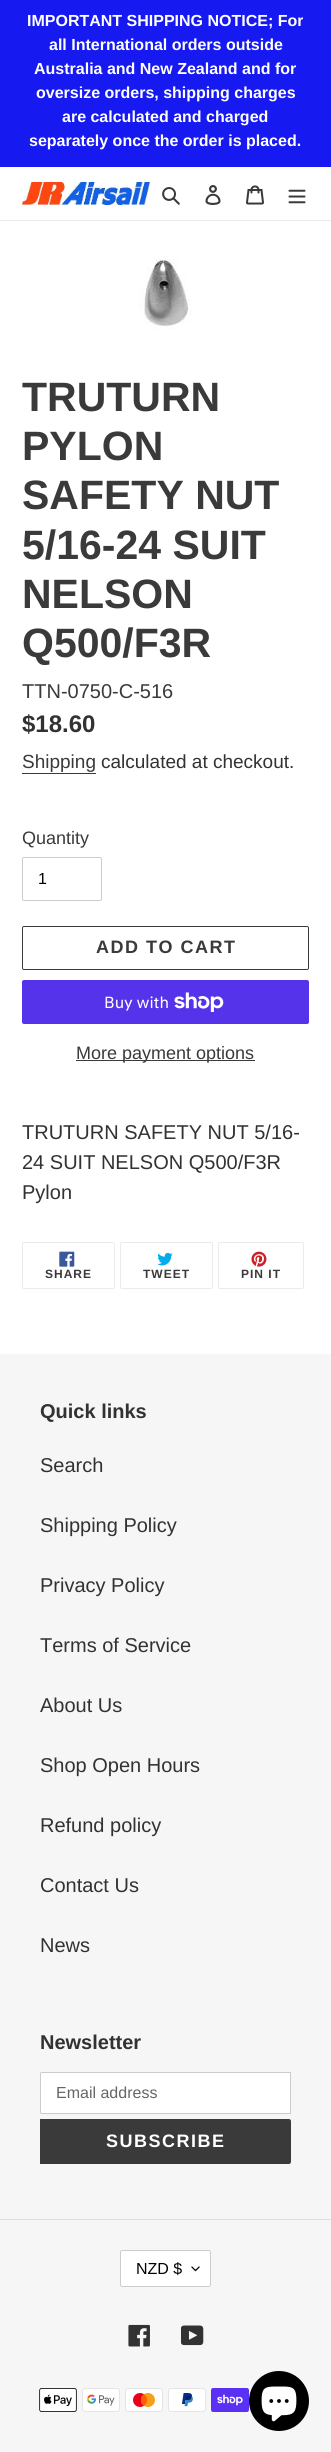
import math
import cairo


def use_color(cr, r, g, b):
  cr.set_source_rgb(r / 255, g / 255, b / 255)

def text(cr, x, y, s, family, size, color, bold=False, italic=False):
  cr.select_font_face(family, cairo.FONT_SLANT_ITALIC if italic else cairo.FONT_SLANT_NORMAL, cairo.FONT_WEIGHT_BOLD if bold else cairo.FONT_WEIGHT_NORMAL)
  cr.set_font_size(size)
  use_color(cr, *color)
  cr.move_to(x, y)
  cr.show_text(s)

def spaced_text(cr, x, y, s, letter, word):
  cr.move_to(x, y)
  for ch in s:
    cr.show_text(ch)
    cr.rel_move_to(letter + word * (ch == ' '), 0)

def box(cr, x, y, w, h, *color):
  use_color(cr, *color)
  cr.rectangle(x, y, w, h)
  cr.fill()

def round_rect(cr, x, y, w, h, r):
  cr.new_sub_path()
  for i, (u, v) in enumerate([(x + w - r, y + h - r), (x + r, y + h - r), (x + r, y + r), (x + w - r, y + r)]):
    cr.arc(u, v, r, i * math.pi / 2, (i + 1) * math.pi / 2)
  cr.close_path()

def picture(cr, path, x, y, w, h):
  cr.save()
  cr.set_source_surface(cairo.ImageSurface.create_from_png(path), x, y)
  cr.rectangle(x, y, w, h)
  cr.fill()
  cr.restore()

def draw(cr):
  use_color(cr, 255, 255, 255)
  cr.paint()
  box(cr, 0, 0, 331, 167, 22, 26, 241)
  box(cr, 0, 220, 331, 1, 235, 235, 235)
  picture(cr, "img_01.png", 22, 182, 128, 23)
  picture(cr, "img_02.png", 162, 187, 18, 18)
  picture(cr, "img_03.png", 205, 185, 16, 20)
  picture(cr, "img_04.png", 246, 185, 18, 20)
  picture(cr, "img_05.png", 288, 189, 18, 15)
  picture(cr, "img_06.png", 139, 259, 52, 71)
  box(cr, 22, 773, 74, 1, 58, 58, 58)
  round_rect(cr, 22.5, 857.5, 79, 43, 1.5)
  use_color(cr, 204, 204, 204)
  cr.set_line_width(1)
  cr.stroke()
  round_rect(cr, 22.5, 926.5, 286, 43, 1.5)
  use_color(cr, 58, 58, 58)
  cr.stroke()
  use_color(cr, 84, 51, 235)
  round_rect(cr, 22, 980, 287, 44, 2)
  cr.fill()
  picture(cr, "img_07.png", 174, 992, 50, 20)
  box(cr, 76, 1060, 179, 1, 58, 58, 58)
  round_rect(cr, 22.5, 1242.5, 92, 46, 1.5)
  use_color(cr, 235, 235, 235)
  cr.stroke()
  picture(cr, "img_08.png", 59, 1251, 16, 16)
  round_rect(cr, 120.5, 1242.5, 92, 46, 1.5)
  cr.stroke()
  picture(cr, "img_09.png", 157, 1252, 16, 14)
  round_rect(cr, 218.5, 1242.5, 85, 46, 1.5)
  cr.stroke()
  picture(cr, "img_10.png", 251, 1251, 16, 16)
  box(cr, 0, 1354, 331, 1098, 246, 246, 246)
  use_color(cr, 255, 255, 255)
  cr.new_path()
  cr.move_to(42, 2072.5)
  cr.line_to(290.5, 2072.5)
  cr.line_to(290.5, 2113.5)
  cr.line_to(42, 2113.5)
  cr.curve_to(41, 2113.5, 40.5, 2113, 40.5, 2112)
  cr.line_to(40.5, 2074)
  cr.curve_to(40.5, 2073, 41, 2072.5, 42, 2072.5)
  cr.close_path()
  cr.fill_preserve()
  use_color(cr, 204, 204, 204)
  cr.stroke()
  use_color(cr, 58, 58, 58)
  cr.new_path()
  cr.move_to(40, 2119)
  cr.line_to(289, 2119)
  cr.curve_to(290, 2119, 291, 2120, 291, 2121)
  cr.line_to(291, 2162)
  cr.curve_to(291, 2163, 290, 2164, 289, 2164)
  cr.line_to(40, 2164)
  cr.close_path()
  cr.fill()
  box(cr, 0, 2219, 331, 1, 221, 221, 221)
  use_color(cr, 255, 255, 255)
  round_rect(cr, 120, 2250, 91, 37, 2)
  cr.fill()
  picture(cr, "img_11.png", 191, 2266, 9, 6)
  round_rect(cr, 120.5, 2250.5, 90, 36, 1.5)
  use_color(cr, 204, 204, 204)
  cr.stroke()
  picture(cr, "img_12.png", 128, 2324, 22, 23)
  picture(cr, "img_13.png", 181, 2325, 23, 21)
  picture(cr, "img_14.png", 39, 2388, 38, 24)
  picture(cr, "img_15.png", 82, 2388, 38, 24)
  picture(cr, "img_16.png", 125, 2388, 38, 24)
  picture(cr, "img_17.png", 168, 2388, 38, 24)
  picture(cr, "img_18.png", 211, 2388, 38, 24)
  use_color(cr, 0, 0, 0)
  cr.arc(279, 2401, 30, 0, 2 * math.pi)
  cr.fill()
  picture(cr, "img_19.png", 261, 2386, 36, 36)
  text(cr, 27, 26, "IMPORTANT SHIPPING NOTICE; For", "Liberation Sans", 16, (255, 255, 255), bold=True)
  text(cr, 49, 50, "all International orders outside", "Liberation Sans", 16, (255, 255, 255), bold=True)
  text(cr, 34, 74, "Australia and New Zealand and for", "Liberation Sans", 16, (255, 255, 255), bold=True)
  text(cr, 36, 98, "oversize orders, shipping charges", "Liberation Sans", 16, (255, 255, 255), bold=True)
  text(cr, 62, 122, "are calculated and charged", "Liberation Sans", 16, (255, 255, 255), bold=True)
  text(cr, 29, 146, "separately once the order is placed.", "Liberation Sans", 16, (255, 255, 255), bold=True)
  text(cr, 22, 411, "TRUTURN", "Liberation Sans", 41, (58, 58, 58), bold=True)
  text(cr, 22, 460, "PYLON", "Liberation Sans", 41, (58, 58, 58), bold=True)
  text(cr, 22, 509, "SAFETY NUT", "Liberation Sans", 41, (58, 58, 58), bold=True)
  text(cr, 22, 559, "5/16-24 SUIT", "Liberation Sans", 41, (58, 58, 58), bold=True)
  text(cr, 22, 608, "NELSON", "Liberation Sans", 41, (58, 58, 58), bold=True)
  text(cr, 22, 657, "Q500/F3R", "Liberation Sans", 41, (58, 58, 58), bold=True)
  text(cr, 22, 698, "TTN-0750-C-516", "Liberation Sans", 20, (58, 58, 58))
  text(cr, 22, 732, "$18.60", "Liberation Sans", 24, (51, 50, 50), bold=True)
  text(cr, 22, 768, "Shipping", "Liberation Sans", 19, (58, 58, 58))
  text(cr, 101, 768, "calculated at checkout.", "Liberation Sans", 19, (51, 50, 50))
  text(cr, 22, 844, "Quantity", "Liberation Sans", 18, (58, 58, 58))
  text(cr, 38, 884, "1", "Liberation Sans", 16, (0, 0, 0))
  cr.select_font_face("Liberation Sans", cairo.FONT_SLANT_NORMAL, cairo.FONT_WEIGHT_BOLD)
  cr.set_font_size(18)
  use_color(cr, 58, 58, 58)
  spaced_text(cr, 96, 953, "ADD TO CART", 1.5, 0)
  text(cr, 104, 1008, "Buy with", "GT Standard", 16, (255, 255, 255))
  text(cr, 76, 1059, "More payment options", "Liberation Sans", 18, (58, 58, 58))
  text(cr, 22, 1139, "TRUTURN SAFETY NUT 5/16-", "Liberation Sans", 20, (51, 50, 50))
  text(cr, 22, 1169, "24 SUIT NELSON Q500/F3R", "Liberation Sans", 20, (51, 50, 50))
  text(cr, 22, 1199, "Pylon", "Liberation Sans", 20, (51, 50, 50))
  cr.select_font_face("Liberation Sans", cairo.FONT_SLANT_NORMAL, cairo.FONT_WEIGHT_BOLD)
  cr.set_font_size(12)
  use_color(cr, 58, 58, 58)
  spaced_text(cr, 45, 1278, "SHARE", 1, 0)
  spaced_text(cr, 143, 1278, "TWEET", 1, 0)
  spaced_text(cr, 241, 1278, "PIN IT", 1, 0)
  text(cr, 40, 1418, "Quick links", "Liberation Sans", 20, (51, 50, 50), bold=True)
  text(cr, 40, 1472, "Search", "Liberation Sans", 20, (51, 50, 50))
  text(cr, 40, 1532, "Shipping Policy", "Liberation Sans", 20, (51, 50, 50))
  text(cr, 40, 1592, "Privacy Policy", "Liberation Sans", 20, (51, 50, 50))
  text(cr, 40, 1652, "Terms of Service", "Liberation Sans", 20, (51, 50, 50))
  text(cr, 40, 1712, "About Us", "Liberation Sans", 20, (51, 50, 50))
  text(cr, 40, 1772, "Shop Open Hours", "Liberation Sans", 20, (51, 50, 50))
  text(cr, 40, 1832, "Refund policy", "Liberation Sans", 20, (51, 50, 50))
  text(cr, 40, 1892, "Contact Us", "Liberation Sans", 20, (51, 50, 50))
  text(cr, 40, 1952, "News", "Liberation Sans", 20, (51, 50, 50))
  text(cr, 40, 2049, "Newsletter", "Liberation Sans", 20, (51, 50, 50), bold=True)
  text(cr, 56, 2098, "Email address", "Liberation Sans", 16, (102, 102, 102))
  cr.select_font_face("Liberation Sans", cairo.FONT_SLANT_NORMAL, cairo.FONT_WEIGHT_BOLD)
  cr.set_font_size(18)
  use_color(cr, 255, 255, 255)
  spaced_text(cr, 106, 2147, "SUBSCRIBE", 1.5, 0)
  text(cr, 136, 2274, "NZD $", "Liberation Sans", 16, (0, 0, 0))


surface = cairo.ImageSurface(cairo.FORMAT_RGB24, 331, 2452)
cr = cairo.Context(surface)
options = cairo.FontOptions()
options.set_hint_metrics(cairo.HINT_METRICS_OFF)
options.set_hint_style(cairo.HINT_STYLE_NONE)
cr.set_font_options(options)
cr.set_miter_limit(4)
draw(cr)
surface.write_to_png("out.png")
